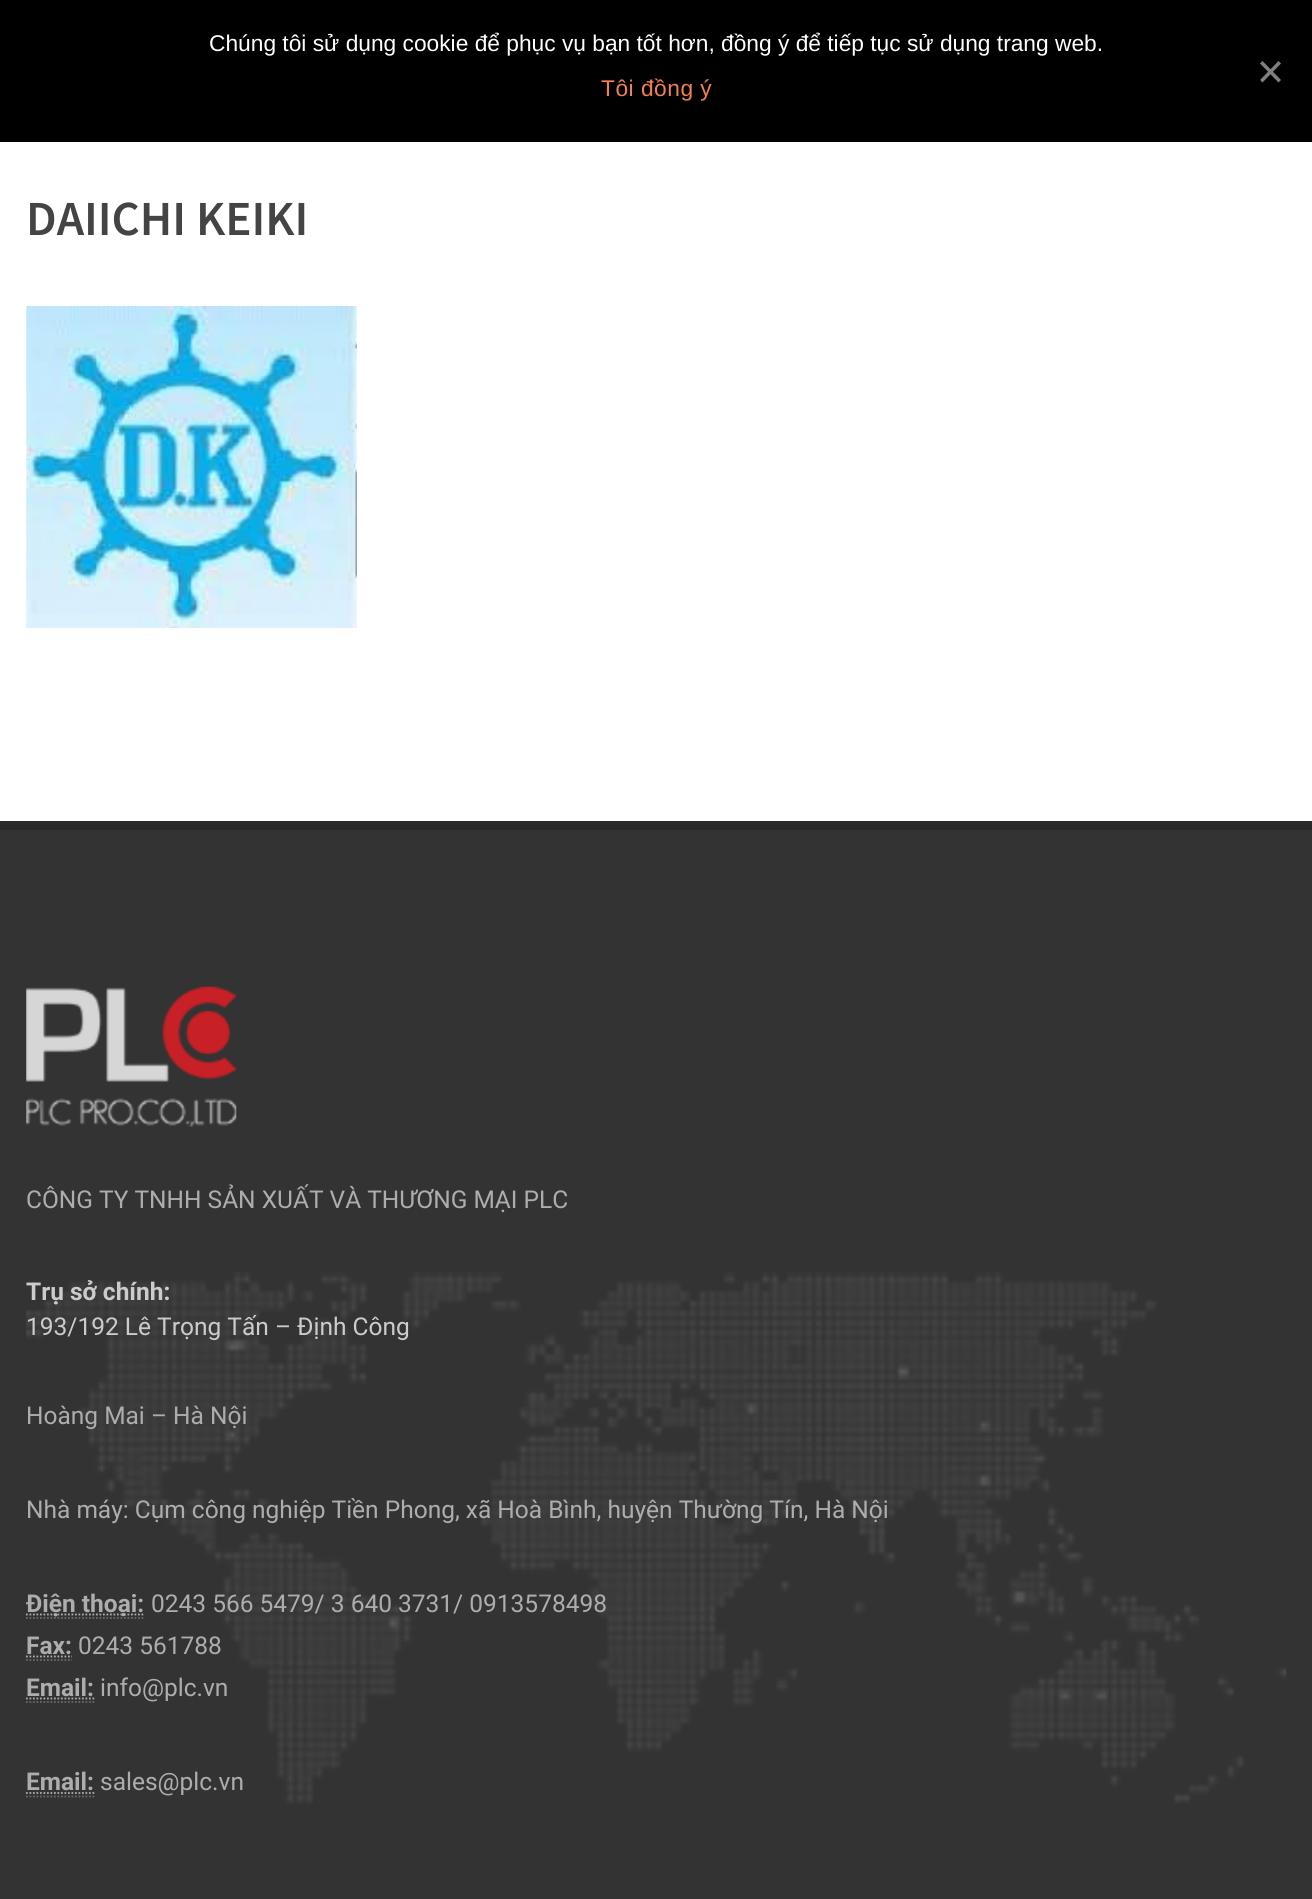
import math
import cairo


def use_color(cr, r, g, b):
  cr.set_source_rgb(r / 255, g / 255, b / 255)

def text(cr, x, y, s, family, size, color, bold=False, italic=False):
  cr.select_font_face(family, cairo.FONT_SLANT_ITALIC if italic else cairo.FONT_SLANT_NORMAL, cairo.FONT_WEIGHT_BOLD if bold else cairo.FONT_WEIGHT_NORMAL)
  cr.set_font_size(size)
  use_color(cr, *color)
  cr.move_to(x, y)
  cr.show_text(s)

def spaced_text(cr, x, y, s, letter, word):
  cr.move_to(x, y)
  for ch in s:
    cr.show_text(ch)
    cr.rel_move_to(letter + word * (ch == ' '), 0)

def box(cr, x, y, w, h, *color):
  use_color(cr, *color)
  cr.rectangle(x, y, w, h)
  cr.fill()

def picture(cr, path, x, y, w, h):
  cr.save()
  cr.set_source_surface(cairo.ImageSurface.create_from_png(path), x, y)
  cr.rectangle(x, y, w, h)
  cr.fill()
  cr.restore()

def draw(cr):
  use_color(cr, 255, 255, 255)
  cr.paint()
  box(cr, 0, 0, 1312, 142, 0, 0, 0)
  use_color(cr, 128, 128, 128)
  cr.new_path()
  cr.move_to(1278.5, 61)
  cr.line_to(1281, 63.5)
  cr.line_to(1262.5, 82.5)
  cr.line_to(1260, 80)
  cr.close_path()
  cr.fill()
  cr.new_path()
  cr.move_to(1260, 63.5)
  cr.line_to(1262.5, 61)
  cr.line_to(1281, 80)
  cr.line_to(1278.5, 82.5)
  cr.close_path()
  cr.fill()
  picture(cr, "img_01.png", 26, 306, 331, 322)
  box(cr, 0, 830, 1312, 1069, 51, 51, 51)
  box(cr, 0, 821, 1312, 9, 41, 41, 41)
  picture(cr, "img_02.png", 26, 986, 211, 141)
  picture(cr, "img_03.png", 26, 1272, 1261, 532)
  cr.new_path()
  cr.move_to(26, 1618)
  cr.line_to(145, 1618)
  use_color(cr, 105, 105, 105)
  cr.set_line_width(1.8)
  cr.set_dash([1.75, 1.75])
  cr.stroke()
  cr.new_path()
  cr.move_to(26, 1614.5)
  cr.line_to(144.5, 1614.5)
  use_color(cr, 173, 173, 173)
  cr.stroke()
  cr.new_path()
  cr.move_to(26, 1660)
  cr.line_to(72, 1660)
  use_color(cr, 105, 105, 105)
  cr.stroke()
  cr.new_path()
  cr.move_to(26, 1656.5)
  cr.line_to(72, 1656.5)
  use_color(cr, 173, 173, 173)
  cr.stroke()
  cr.new_path()
  cr.move_to(26, 1702)
  cr.line_to(94.5, 1702)
  use_color(cr, 105, 105, 105)
  cr.stroke()
  cr.new_path()
  cr.move_to(26, 1698.5)
  cr.line_to(94.5, 1698.5)
  use_color(cr, 173, 173, 173)
  cr.stroke()
  cr.new_path()
  cr.move_to(26, 1796.5)
  cr.line_to(94.5, 1796.5)
  use_color(cr, 105, 105, 105)
  cr.stroke()
  cr.new_path()
  cr.move_to(26, 1793)
  cr.line_to(94.5, 1793)
  use_color(cr, 173, 173, 173)
  cr.stroke()
  text(cr, 209, 51, "Chúng tôi sử dụng cookie để phục vụ bạn tốt hơn, đồng ý để tiếp tục sử dụng trang web.", "Liberation Sans", 22.75, (255, 255, 255))
  use_color(cr, 241, 128, 82)
  spaced_text(cr, 601, 96, "Tôi đồng ý", 0.5, 0)
  text(cr, 26, 235, "DAIICHI KEIKI", "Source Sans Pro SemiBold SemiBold", 49, (68, 68, 68))
  text(cr, 26, 1208, "CÔNG TY TNHH SẢN XUẤT VÀ THƯƠNG MẠI PLC", "Roboto", 24.5, (173, 173, 173))
  text(cr, 26, 1300, "Trụ sở chính:", "Roboto", 24.5, (204, 204, 204), bold=True)
  text(cr, 26, 1335, "193/192 Lê Trọng Tấn – Định Công", "Roboto", 24.5, (204, 204, 204))
  text(cr, 26, 1424, "Hoàng Mai – Hà Nội", "Roboto", 24.5, (173, 173, 173))
  text(cr, 26, 1518, "Nhà máy: Cụm công nghiệp Tiền Phong, xã Hoà Bình, huyện Thường Tín, Hà Nội", "Roboto", 24.5, (173, 173, 173))
  text(cr, 26, 1612, "Điện thoại:", "Roboto", 24.5, (173, 173, 173), bold=True)
  text(cr, 151, 1612, "0243 566 5479/ 3 640 3731/ 0913578498", "Roboto", 24.5, (173, 173, 173))
  text(cr, 26, 1654, "Fax:", "Roboto", 24.5, (173, 173, 173), bold=True)
  text(cr, 78, 1654, "0243 561788", "Roboto", 24.5, (173, 173, 173))
  text(cr, 26, 1696, "Email:", "Roboto", 24.5, (173, 173, 173), bold=True)
  text(cr, 100, 1696, "info@plc.vn", "Roboto", 24.5, (173, 173, 173))
  text(cr, 26, 1790, "Email:", "Roboto", 24.5, (173, 173, 173), bold=True)
  text(cr, 100, 1790, "sales@plc.vn", "Roboto", 24.5, (173, 173, 173))


surface = cairo.ImageSurface(cairo.FORMAT_RGB24, 1312, 1899)
cr = cairo.Context(surface)
options = cairo.FontOptions()
options.set_hint_metrics(cairo.HINT_METRICS_OFF)
options.set_hint_style(cairo.HINT_STYLE_NONE)
cr.set_font_options(options)
cr.set_miter_limit(4)
draw(cr)
surface.write_to_png("out.png")
